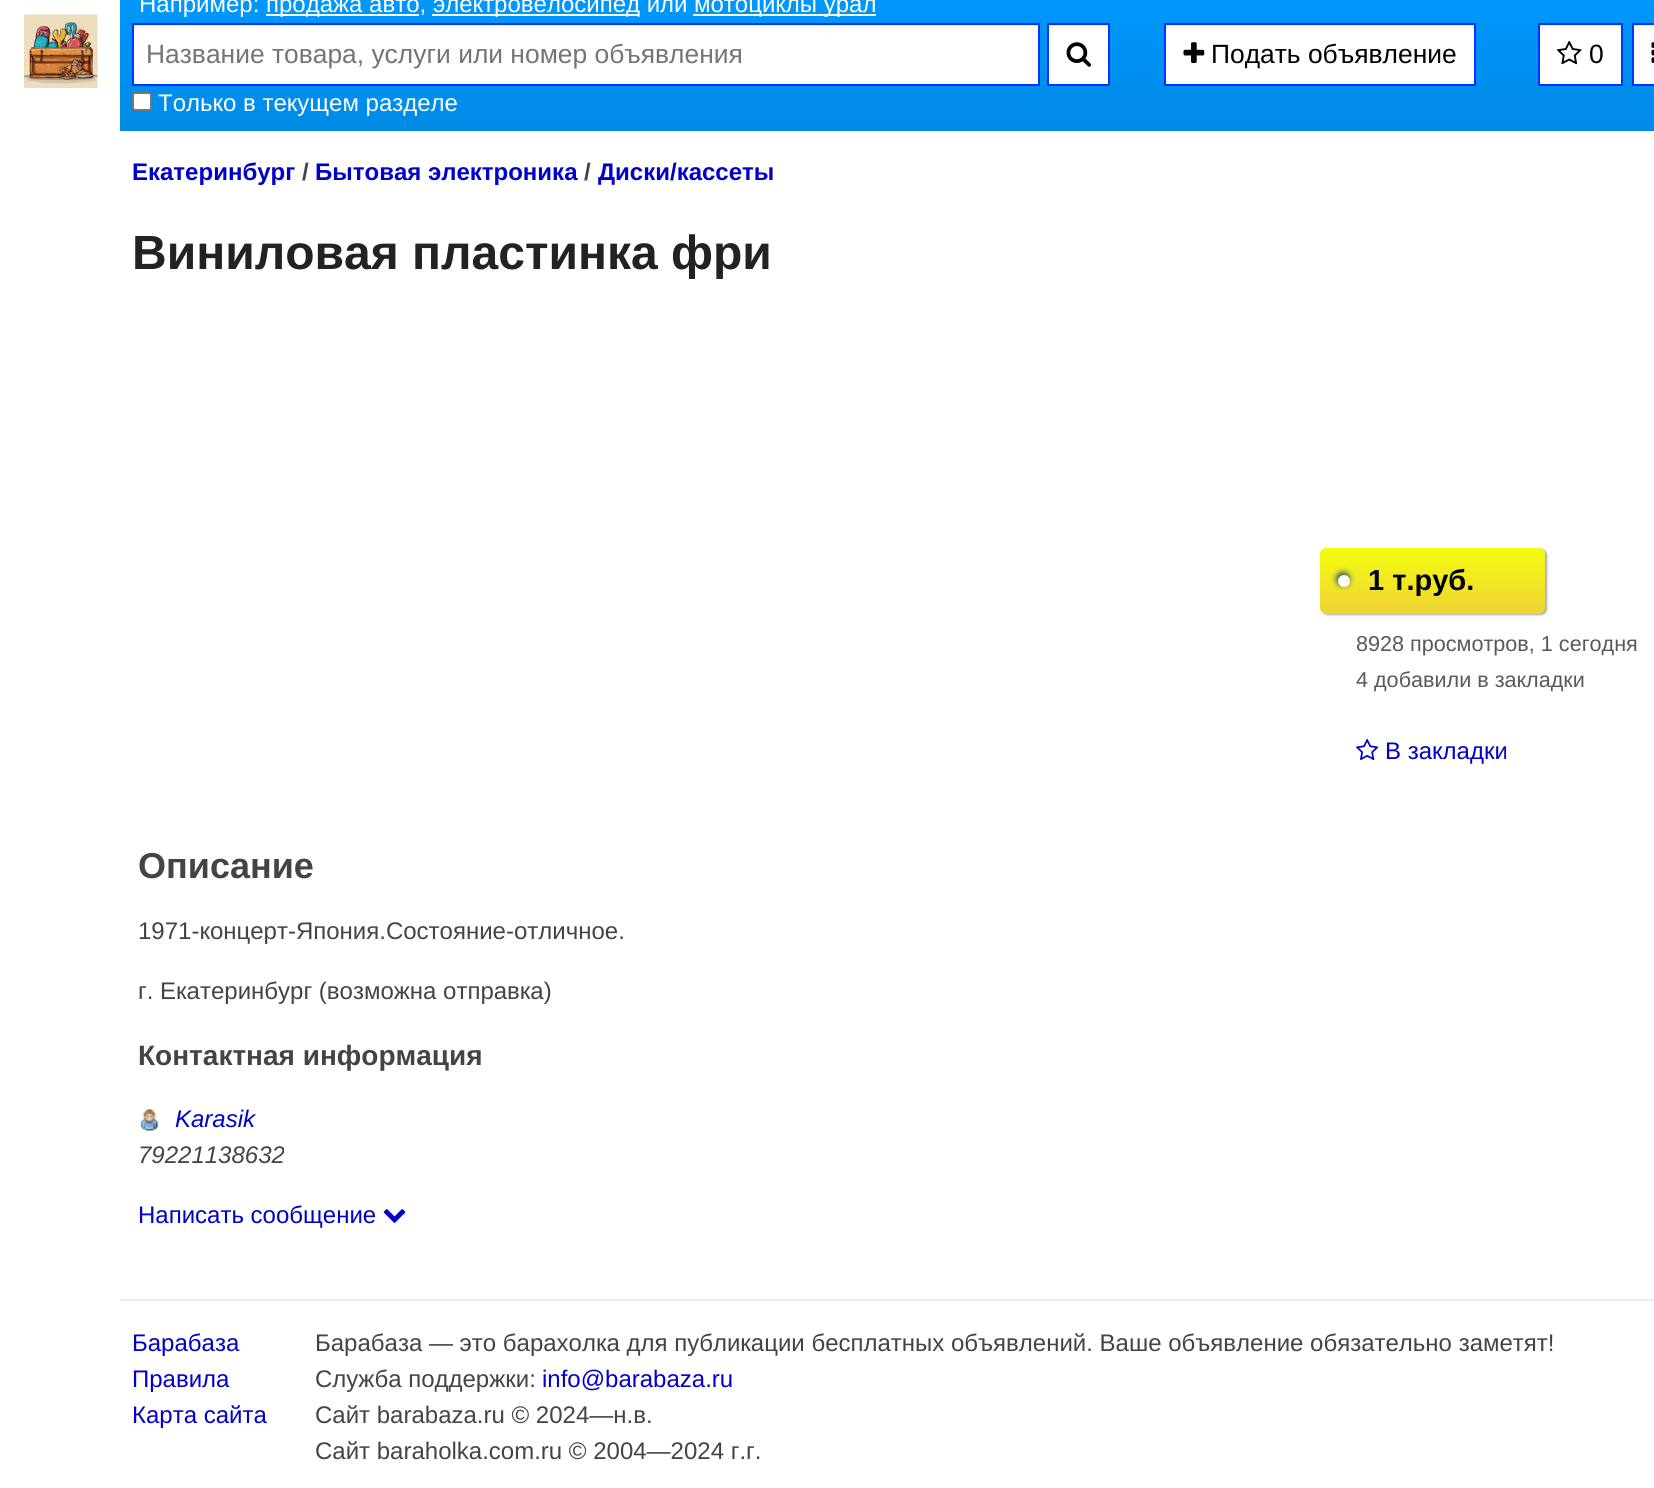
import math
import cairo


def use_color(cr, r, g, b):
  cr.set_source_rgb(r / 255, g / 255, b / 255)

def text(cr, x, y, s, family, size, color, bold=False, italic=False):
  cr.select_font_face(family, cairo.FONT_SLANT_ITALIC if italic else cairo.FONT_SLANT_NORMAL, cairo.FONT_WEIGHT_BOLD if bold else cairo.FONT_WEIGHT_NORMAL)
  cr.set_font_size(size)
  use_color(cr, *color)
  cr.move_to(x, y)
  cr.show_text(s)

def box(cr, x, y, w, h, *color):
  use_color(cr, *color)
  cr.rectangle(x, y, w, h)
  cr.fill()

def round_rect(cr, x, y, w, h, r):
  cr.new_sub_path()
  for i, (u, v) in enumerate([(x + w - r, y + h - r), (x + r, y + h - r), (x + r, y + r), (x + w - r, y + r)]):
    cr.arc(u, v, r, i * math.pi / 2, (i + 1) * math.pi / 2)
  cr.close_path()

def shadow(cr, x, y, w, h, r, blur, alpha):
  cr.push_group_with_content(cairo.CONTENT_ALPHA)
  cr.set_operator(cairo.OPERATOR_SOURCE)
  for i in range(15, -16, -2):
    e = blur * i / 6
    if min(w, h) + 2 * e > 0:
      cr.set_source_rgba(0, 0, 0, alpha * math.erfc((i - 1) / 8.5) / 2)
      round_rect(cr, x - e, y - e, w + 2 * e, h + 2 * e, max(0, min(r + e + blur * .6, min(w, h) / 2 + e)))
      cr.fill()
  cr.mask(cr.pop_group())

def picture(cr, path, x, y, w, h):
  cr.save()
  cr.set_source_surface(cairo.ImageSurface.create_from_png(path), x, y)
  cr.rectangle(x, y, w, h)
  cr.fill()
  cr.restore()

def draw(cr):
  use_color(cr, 255, 255, 255)
  cr.paint()
  gradient = cairo.LinearGradient(0, -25, 0, 131)
  gradient.add_color_stop_rgba(0, 0, 0.6, 1, 1)
  gradient.add_color_stop_rgba(1, 0, 0.541, 0.902, 1)
  cr.set_source(gradient)
  cr.rectangle(120, 0, 1534, 131)
  cr.fill()
  picture(cr, "img_01.png", 24, 14, 74, 74)
  box(cr, 266, 14, 153, 2, 255, 255, 255)
  box(cr, 432, 14, 207, 2, 255, 255, 255)
  box(cr, 693, 14, 183, 2, 255, 255, 255)
  box(cr, 134, 26, 904, 58, 255, 255, 255)
  box(cr, 134, 25, 904, 1, 236, 236, 236)
  cr.rectangle(133, 24, 906, 61)
  use_color(cr, 0, 51, 255)
  cr.stroke()
  box(cr, 1049, 26, 59, 58, 255, 255, 255)
  box(cr, 1049, 25, 60, 1, 236, 236, 236)
  cr.rectangle(1048, 24, 61, 61)
  use_color(cr, 0, 51, 255)
  cr.stroke()
  picture(cr, "img_02.png", 1066, 42, 25, 25)
  use_color(cr, 255, 255, 255)
  round_rect(cr, 133, 93, 18, 17, 2)
  cr.fill_preserve()
  use_color(cr, 118, 118, 118)
  cr.stroke()
  box(cr, 1166, 26, 308, 58, 255, 255, 255)
  box(cr, 1166, 25, 309, 1, 236, 236, 236)
  cr.rectangle(1165, 24, 310, 61)
  use_color(cr, 0, 51, 255)
  cr.stroke()
  picture(cr, "img_03.png", 1183, 42, 22, 21)
  box(cr, 1540, 26, 81, 58, 255, 255, 255)
  box(cr, 1539, 25, 83, 1, 236, 236, 236)
  cr.rectangle(1539, 24, 83, 61)
  use_color(cr, 0, 51, 255)
  cr.stroke()
  picture(cr, "img_04.png", 1557, 40, 25, 25)
  box(cr, 1634, 26, 20, 58, 255, 255, 255)
  box(cr, 1634, 25, 20, 1, 236, 236, 236)
  cr.rectangle(1633, 24, 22, 61)
  use_color(cr, 0, 51, 255)
  cr.stroke()
  picture(cr, "img_05.png", 1651, 42, 3, 21)
  use_color(cr, 170, 170, 170)
  shadow(cr, 1322, 549, 225, 66, 6, 1, 1)
  gradient = cairo.LinearGradient(1320, 548, 1320, 614)
  gradient.add_color_stop_rgba(0, 0.957, 0.992, 0.059, 1)
  gradient.add_color_stop_rgba(1, 0.937, 0.827, 0.204, 1)
  cr.set_source(gradient)
  round_rect(cr, 1320, 548, 225, 66, 6)
  cr.fill()
  use_color(cr, 0, 73, 119)
  shadow(cr, 1337, 573, 12, 12, 6, 3, 1)
  use_color(cr, 255, 255, 255)
  cr.arc(1344, 581, 6, 0, 2 * math.pi)
  cr.fill()
  picture(cr, "img_06.png", 1356, 738, 23, 23)
  picture(cr, "img_07.png", 140, 1109, 19, 22)
  picture(cr, "img_08.png", 383, 1209, 23, 14)
  box(cr, 120, 1299, 1534, 2, 238, 238, 238)
  text(cr, 139, 12, "Например:", "Liberation Sans", 24, (255, 255, 255))
  text(cr, 266, 12, "продажа авто,", "Liberation Sans", 24, (255, 255, 255))
  text(cr, 433, 12, "электровелосипед или", "Liberation Sans", 24, (255, 255, 255))
  text(cr, 694, 12, "мотоциклы урал", "Liberation Sans", 24, (255, 255, 255))
  text(cr, 146, 63, "Название товара, услуги или номер объявления", "Liberation Sans", 26.4, (117, 117, 117))
  text(cr, 158, 111, "Только в текущем разделе", "Liberation Sans", 24, (255, 255, 255))
  text(cr, 1211, 63, "Подать объявление", "Liberation Sans", 26.4, (0, 0, 0))
  text(cr, 1589, 63, "0", "Liberation Sans", 26.4, (0, 0, 0))
  text(cr, 132, 180, "Екатеринбург", "Liberation Sans", 24, (0, 0, 204), bold=True)
  text(cr, 302, 180, "/", "Liberation Sans", 24, (68, 68, 68), bold=True)
  text(cr, 315, 180, "Бытовая электроника", "Liberation Sans", 24, (0, 0, 204), bold=True)
  text(cr, 584, 180, "/", "Liberation Sans", 24, (68, 68, 68), bold=True)
  text(cr, 598, 180, "Диски/кассеты", "Liberation Sans", 24, (0, 0, 204), bold=True)
  text(cr, 132, 269, "Виниловая пластинка фри", "Liberation Sans", 48, (34, 34, 34), bold=True)
  text(cr, 1368, 590, "1 т.руб.", "Liberation Sans", 29, (0, 0, 0), bold=True)
  text(cr, 1356, 651, "8928 просмотров, 1 сегодня", "Liberation Sans", 21.6, (89, 89, 89))
  text(cr, 1356, 687, "4 добавили в закладки", "Liberation Sans", 21.6, (89, 89, 89))
  text(cr, 1385, 759, "В закладки", "Liberation Sans", 24, (0, 0, 204))
  text(cr, 138, 878, "Описание", "Liberation Sans", 36, (68, 68, 68), bold=True)
  text(cr, 138, 939, "1971-концерт-Япония.Состояние-отличное.", "Liberation Sans", 24, (68, 68, 68))
  text(cr, 138, 999, "г. Екатеринбург (возможна отправка)", "Liberation Sans", 24, (68, 68, 68))
  text(cr, 138, 1065, "Контактная информация", "Liberation Sans", 28, (68, 68, 68), bold=True)
  text(cr, 175, 1127, "Karasik", "Liberation Sans", 24, (0, 0, 204), italic=True)
  text(cr, 138, 1163, "79221138632", "Liberation Sans", 24, (68, 68, 68), italic=True)
  text(cr, 138, 1223, "Написать сообщение", "Liberation Sans", 24, (0, 0, 204))
  text(cr, 132, 1351, "Барабаза", "Liberation Sans", 24, (0, 0, 204))
  text(cr, 132, 1387, "Правила", "Liberation Sans", 24, (0, 0, 204))
  text(cr, 132, 1423, "Карта сайта", "Liberation Sans", 24, (0, 0, 204))
  text(cr, 315, 1351, "Барабаза — это барахолка для публикации бесплатных объявлений. Ваше объявление обязательно заметят!", "Liberation Sans", 24, (68, 68, 68))
  text(cr, 315, 1387, "Служба поддержки:", "Liberation Sans", 24, (68, 68, 68))
  text(cr, 542, 1387, "info@barabaza.ru", "Liberation Sans", 24, (0, 0, 204))
  text(cr, 315, 1423, "Сайт barabaza.ru © 2024—н.в.", "Liberation Sans", 24, (68, 68, 68))
  text(cr, 315, 1459, "Сайт baraholka.com.ru © 2004—2024 г.г.", "Liberation Sans", 24, (68, 68, 68))


surface = cairo.ImageSurface(cairo.FORMAT_RGB24, 1654, 1488)
cr = cairo.Context(surface)
options = cairo.FontOptions()
options.set_hint_metrics(cairo.HINT_METRICS_OFF)
options.set_hint_style(cairo.HINT_STYLE_NONE)
cr.set_font_options(options)
cr.set_miter_limit(4)
draw(cr)
surface.write_to_png("out.png")
